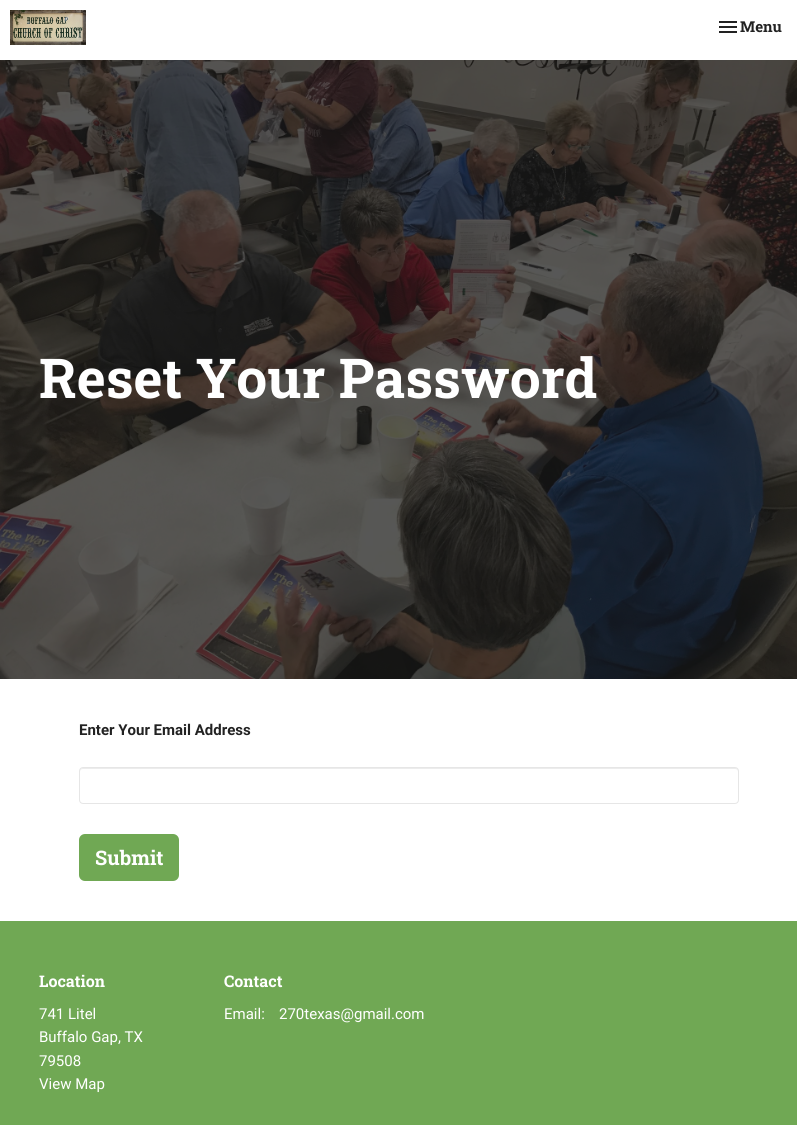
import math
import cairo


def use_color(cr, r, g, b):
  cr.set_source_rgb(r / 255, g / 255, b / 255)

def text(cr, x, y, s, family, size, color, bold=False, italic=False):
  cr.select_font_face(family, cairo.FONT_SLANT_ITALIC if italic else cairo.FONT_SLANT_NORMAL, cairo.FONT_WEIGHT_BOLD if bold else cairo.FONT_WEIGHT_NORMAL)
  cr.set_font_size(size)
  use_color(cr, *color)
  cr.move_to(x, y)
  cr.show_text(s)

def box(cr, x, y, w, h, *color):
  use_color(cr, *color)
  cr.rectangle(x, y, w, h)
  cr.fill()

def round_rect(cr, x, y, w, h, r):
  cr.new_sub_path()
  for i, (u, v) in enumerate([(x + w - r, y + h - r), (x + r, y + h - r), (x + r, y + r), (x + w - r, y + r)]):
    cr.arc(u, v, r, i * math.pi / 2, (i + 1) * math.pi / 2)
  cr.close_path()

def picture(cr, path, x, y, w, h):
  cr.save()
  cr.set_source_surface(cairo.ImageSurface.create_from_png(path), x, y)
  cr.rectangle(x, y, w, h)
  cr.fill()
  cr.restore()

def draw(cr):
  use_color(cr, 255, 255, 255)
  cr.paint()
  picture(cr, "img_01.png", 10, 10, 76, 35)
  picture(cr, "img_02.png", 719, 21, 18, 12)
  picture(cr, "img_03.png", 0, 60, 797, 619)
  use_color(cr, 236, 236, 236)
  cr.new_path()
  cr.move_to(83, 769)
  cr.line_to(735, 769)
  cr.curve_to(737, 769, 738, 770, 738, 772)
  cr.line_to(738, 771)
  cr.curve_to(738, 769, 737, 768, 735, 768)
  cr.line_to(83, 768)
  cr.curve_to(81, 768, 80, 769, 80, 771)
  cr.line_to(80, 772)
  cr.curve_to(80, 770, 81, 769, 83, 769)
  cr.close_path()
  cr.fill()
  round_rect(cr, 79.5, 767.5, 659, 36, 3.5)
  use_color(cr, 230, 230, 230)
  cr.set_line_width(1)
  cr.stroke()
  use_color(cr, 112, 168, 84)
  round_rect(cr, 79, 834, 100, 47, 6)
  cr.fill()
  box(cr, 0, 921, 797, 204, 112, 168, 84)
  text(cr, 740, 32, "Menu", "Roboto Slab", 15, (34, 34, 34), bold=True)
  text(cr, 39, 398, "Reset Your Password", "Roboto Slab", 55, (255, 255, 255), bold=True)
  text(cr, 79, 735, "Enter Your Email Address", "Roboto", 15, (34, 34, 34), bold=True)
  text(cr, 95, 865, "Submit", "Roboto Slab", 20, (255, 255, 255), bold=True)
  text(cr, 39, 987, "Location", "Roboto Slab", 16, (255, 255, 255), bold=True)
  text(cr, 39, 1019, "741 Litel", "Roboto", 15, (255, 255, 255))
  text(cr, 39, 1042, "Buffalo Gap, TX", "Roboto", 15, (255, 255, 255))
  text(cr, 39, 1066, "79508", "Roboto", 15, (255, 255, 255))
  text(cr, 39, 1089, "View Map", "Roboto", 15, (255, 255, 255))
  text(cr, 224, 987, "Contact", "Roboto Slab", 16, (255, 255, 255), bold=True)
  text(cr, 224, 1019, "Email:", "Roboto", 15, (255, 255, 255))
  text(cr, 279, 1019, "270texas@gmail.com", "Roboto", 15, (255, 255, 255))


surface = cairo.ImageSurface(cairo.FORMAT_RGB24, 797, 1125)
cr = cairo.Context(surface)
options = cairo.FontOptions()
options.set_hint_metrics(cairo.HINT_METRICS_OFF)
options.set_hint_style(cairo.HINT_STYLE_NONE)
cr.set_font_options(options)
cr.set_miter_limit(4)
draw(cr)
surface.write_to_png("out.png")
